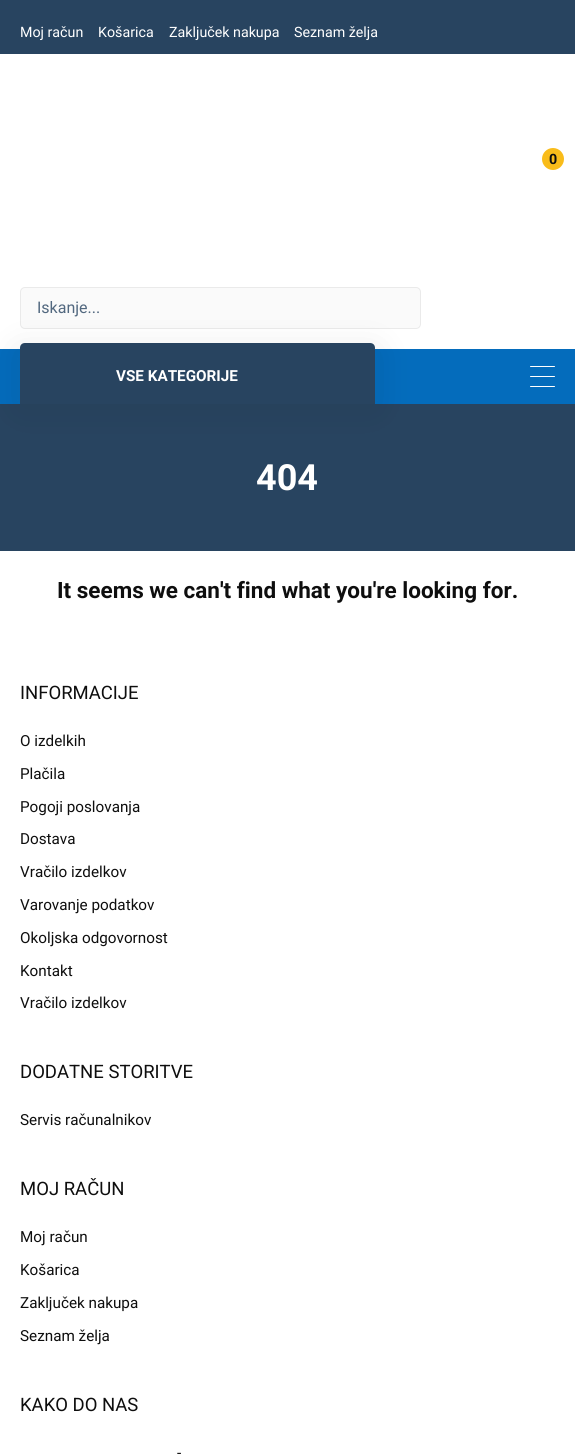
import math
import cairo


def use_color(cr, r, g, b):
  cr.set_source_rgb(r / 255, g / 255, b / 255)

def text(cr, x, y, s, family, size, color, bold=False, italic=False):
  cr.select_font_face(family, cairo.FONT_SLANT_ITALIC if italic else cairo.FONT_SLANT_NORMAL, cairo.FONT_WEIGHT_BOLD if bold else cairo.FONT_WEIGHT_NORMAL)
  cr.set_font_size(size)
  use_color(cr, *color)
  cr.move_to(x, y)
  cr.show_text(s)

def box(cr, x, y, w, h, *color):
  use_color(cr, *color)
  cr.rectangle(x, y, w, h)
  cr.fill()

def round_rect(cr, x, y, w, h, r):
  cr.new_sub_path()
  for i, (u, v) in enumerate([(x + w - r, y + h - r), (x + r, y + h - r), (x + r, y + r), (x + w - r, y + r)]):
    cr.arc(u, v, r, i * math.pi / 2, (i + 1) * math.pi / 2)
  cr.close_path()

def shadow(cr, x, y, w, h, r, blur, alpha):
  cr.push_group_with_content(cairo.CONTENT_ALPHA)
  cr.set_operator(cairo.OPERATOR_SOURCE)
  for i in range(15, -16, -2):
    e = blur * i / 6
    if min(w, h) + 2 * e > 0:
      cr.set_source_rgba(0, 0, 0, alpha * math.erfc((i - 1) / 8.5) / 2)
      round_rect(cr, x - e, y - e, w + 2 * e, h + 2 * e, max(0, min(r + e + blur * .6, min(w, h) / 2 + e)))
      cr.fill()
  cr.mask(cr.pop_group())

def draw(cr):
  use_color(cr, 255, 255, 255)
  cr.paint()
  box(cr, 0, 349, 575, 55, 4, 108, 188)
  box(cr, 0, 0, 575, 54, 40, 68, 96)
  use_color(cr, 249, 188, 26)
  cr.arc(553, 159, 11, 0, 2 * math.pi)
  cr.fill()
  use_color(cr, 250, 250, 250)
  round_rect(cr, 20.5, 287.5, 400, 41, 4.5)
  cr.fill_preserve()
  use_color(cr, 234, 234, 234)
  cr.set_line_width(1)
  cr.stroke()
  box(cr, 0, 404, 575, 147, 40, 68, 96)
  use_color(cr, 14, 14, 14)
  shadow(cr, 20, 352, 355, 55, 0, 17.5, 0.1)
  box(cr, 20, 350, 355, 54, 40, 68, 96)
  cr.new_path()
  cr.move_to(25, 343)
  cr.line_to(370, 343)
  cr.curve_to(373, 343, 375, 345, 375, 348)
  cr.line_to(375, 350)
  cr.line_to(20, 350)
  cr.line_to(20, 348)
  cr.curve_to(20, 345, 22, 343, 25, 343)
  cr.close_path()
  cr.fill()
  use_color(cr, 255, 255, 255)
  round_rect(cr, 530, 366, 25, 1, 0.5)
  cr.fill()
  round_rect(cr, 530, 376, 25, 1, 0.5)
  cr.fill()
  round_rect(cr, 530, 386, 25, 1, 0.5)
  cr.fill()
  text(cr, 20, 37, "Moj račun", "Roboto", 14.25, (255, 255, 255))
  text(cr, 98, 37, "Košarica", "Roboto", 14.25, (255, 255, 255))
  text(cr, 169, 37, "Zaključek nakupa", "Roboto", 14.25, (255, 255, 255))
  text(cr, 294, 37, "Seznam želja", "Roboto", 14.25, (255, 255, 255))
  text(cr, 549, 164, "0", "Roboto", 14.25, (14, 14, 14), bold=True)
  text(cr, 37, 313, "Iskanje...", "Roboto", 16, (82, 104, 127))
  text(cr, 116, 381, "VSE KATEGORIJE", "Roboto", 15.25, (255, 255, 255), bold=True)
  text(cr, 256, 490, "404", "Roboto", 36, (255, 255, 255), bold=True)
  text(cr, 57, 598, "It seems we can't find what you're looking for.", "Roboto", 22.5, (14, 14, 14), bold=True)
  text(cr, 20, 699, "INFORMACIJE", "Roboto", 18.5, (14, 14, 14))
  text(cr, 20, 746, "O izdelkih", "Roboto", 15.25, (14, 14, 14))
  text(cr, 20, 779, "Plačila", "Roboto", 15.25, (14, 14, 14))
  text(cr, 20, 812, "Pogoji poslovanja", "Roboto", 15.25, (14, 14, 14))
  text(cr, 20, 844, "Dostava", "Roboto", 15.25, (14, 14, 14))
  text(cr, 20, 877, "Vračilo izdelkov", "Roboto", 15.25, (14, 14, 14))
  text(cr, 20, 910, "Varovanje podatkov", "Roboto", 15.25, (14, 14, 14))
  text(cr, 20, 943, "Okoljska odgovornost", "Roboto", 15.25, (14, 14, 14))
  text(cr, 20, 976, "Kontakt", "Roboto", 15.25, (14, 14, 14))
  text(cr, 20, 1008, "Vračilo izdelkov", "Roboto", 15.25, (14, 14, 14))
  text(cr, 20, 1078, "DODATNE STORITVE", "Roboto", 18.5, (14, 14, 14))
  text(cr, 20, 1125, "Servis računalnikov", "Roboto", 15.25, (14, 14, 14))
  text(cr, 20, 1195, "MOJ RAČUN", "Roboto", 18.5, (14, 14, 14))
  text(cr, 20, 1242, "Moj račun", "Roboto", 15.25, (14, 14, 14))
  text(cr, 20, 1275, "Košarica", "Roboto", 15.25, (14, 14, 14))
  text(cr, 20, 1308, "Zaključek nakupa", "Roboto", 15.25, (14, 14, 14))
  text(cr, 20, 1341, "Seznam želja", "Roboto", 15.25, (14, 14, 14))
  text(cr, 20, 1411, "KAKO DO NAS", "Roboto", 18.5, (14, 14, 14))
  text(cr, 177, 1458, "-", "Roboto", 15.25, (14, 14, 14))


surface = cairo.ImageSurface(cairo.FORMAT_RGB24, 575, 1454)
cr = cairo.Context(surface)
options = cairo.FontOptions()
options.set_hint_metrics(cairo.HINT_METRICS_OFF)
options.set_hint_style(cairo.HINT_STYLE_NONE)
cr.set_font_options(options)
cr.set_miter_limit(4)
draw(cr)
surface.write_to_png("out.png")
